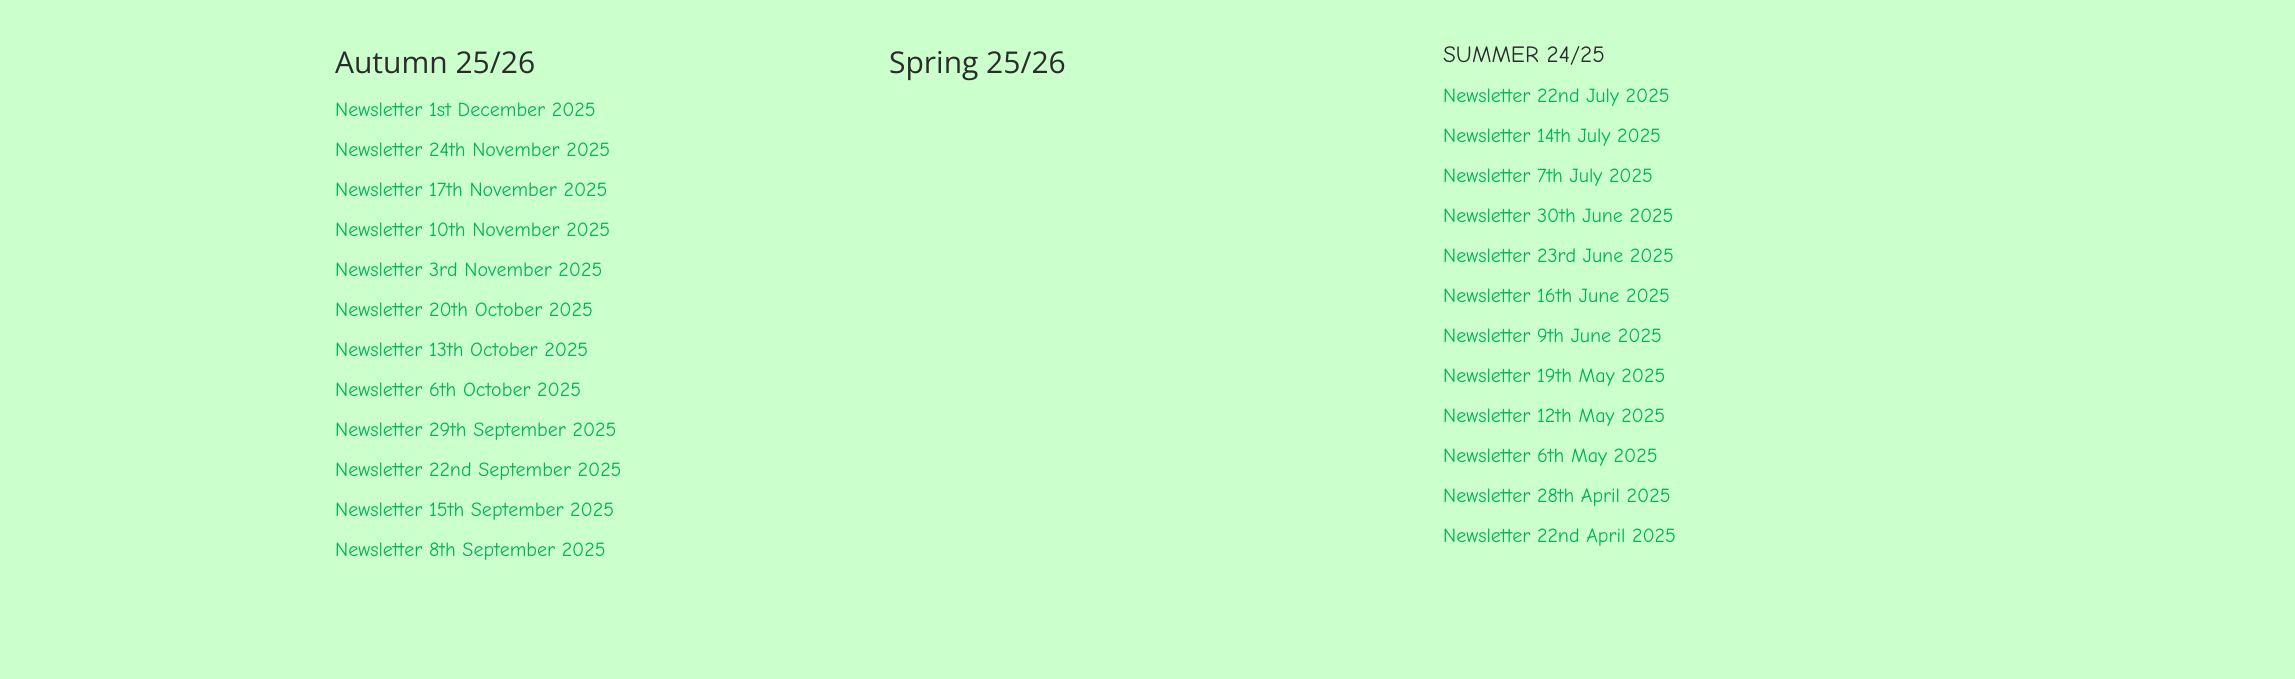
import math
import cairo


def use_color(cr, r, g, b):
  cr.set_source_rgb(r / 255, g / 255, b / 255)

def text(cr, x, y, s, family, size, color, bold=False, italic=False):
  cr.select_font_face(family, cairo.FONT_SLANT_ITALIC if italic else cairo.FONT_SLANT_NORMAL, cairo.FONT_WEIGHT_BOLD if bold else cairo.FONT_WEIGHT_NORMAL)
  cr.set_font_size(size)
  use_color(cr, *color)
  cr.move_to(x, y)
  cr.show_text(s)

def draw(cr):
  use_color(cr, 203, 255, 204)
  cr.paint()
  text(cr, 335, 73, "Autumn 25/26", "Open Sans", 30, (43, 43, 43))
  text(cr, 335, 116, "Newsletter 1st December 2025", "Comic Neue", 20, (0, 179, 83))
  text(cr, 335, 156, "Newsletter 24th November 2025", "Comic Neue", 20, (0, 179, 83))
  text(cr, 335, 196, "Newsletter 17th November 2025", "Comic Neue", 20, (0, 179, 83))
  text(cr, 335, 236, "Newsletter 10th November 2025", "Comic Neue", 20, (0, 179, 83))
  text(cr, 335, 276, "Newsletter 3rd November 2025", "Comic Neue", 20, (0, 179, 83))
  text(cr, 335, 316, "Newsletter 20th October 2025", "Comic Neue", 20, (0, 179, 83))
  text(cr, 335, 356, "Newsletter 13th October 2025", "Comic Neue", 20, (0, 179, 83))
  text(cr, 335, 396, "Newsletter 6th October 2025", "Comic Neue", 20, (0, 179, 83))
  text(cr, 335, 436, "Newsletter 29th September 2025", "Comic Neue", 20, (0, 179, 83))
  text(cr, 335, 476, "Newsletter 22nd September 2025", "Comic Neue", 20, (0, 179, 83))
  text(cr, 335, 516, "Newsletter 15th September 2025", "Comic Neue", 20, (0, 179, 83))
  text(cr, 335, 556, "Newsletter 8th September 2025", "Comic Neue", 20, (0, 179, 83))
  text(cr, 889, 73, "Spring 25/26", "Open Sans", 30, (43, 43, 43))
  text(cr, 1443, 62, "SUMMER 24/25", "Comic Neue", 23.25, (43, 43, 43))
  text(cr, 1443, 102, "Newsletter 22nd July 2025", "Comic Neue", 20, (0, 179, 83))
  text(cr, 1443, 142, "Newsletter 14th July 2025", "Comic Neue", 20, (0, 179, 83))
  text(cr, 1443, 182, "Newsletter 7th July 2025", "Comic Neue", 20, (0, 179, 83))
  text(cr, 1443, 222, "Newsletter 30th June 2025", "Comic Neue", 20, (0, 179, 83))
  text(cr, 1443, 262, "Newsletter 23rd June 2025", "Comic Neue", 20, (0, 179, 83))
  text(cr, 1443, 302, "Newsletter 16th June 2025", "Comic Neue", 20, (0, 179, 83))
  text(cr, 1443, 342, "Newsletter 9th June 2025", "Comic Neue", 20, (0, 179, 83))
  text(cr, 1443, 382, "Newsletter 19th May 2025", "Comic Neue", 20, (0, 179, 83))
  text(cr, 1443, 422, "Newsletter 12th May 2025", "Comic Neue", 20, (0, 179, 83))
  text(cr, 1443, 462, "Newsletter 6th May 2025", "Comic Neue", 20, (0, 179, 83))
  text(cr, 1443, 502, "Newsletter 28th April 2025", "Comic Neue", 20, (0, 179, 83))
  text(cr, 1443, 542, "Newsletter 22nd April 2025", "Comic Neue", 20, (0, 179, 83))


surface = cairo.ImageSurface(cairo.FORMAT_RGB24, 2295, 679)
cr = cairo.Context(surface)
options = cairo.FontOptions()
options.set_hint_metrics(cairo.HINT_METRICS_OFF)
options.set_hint_style(cairo.HINT_STYLE_NONE)
cr.set_font_options(options)
cr.set_miter_limit(4)
draw(cr)
surface.write_to_png("out.png")
